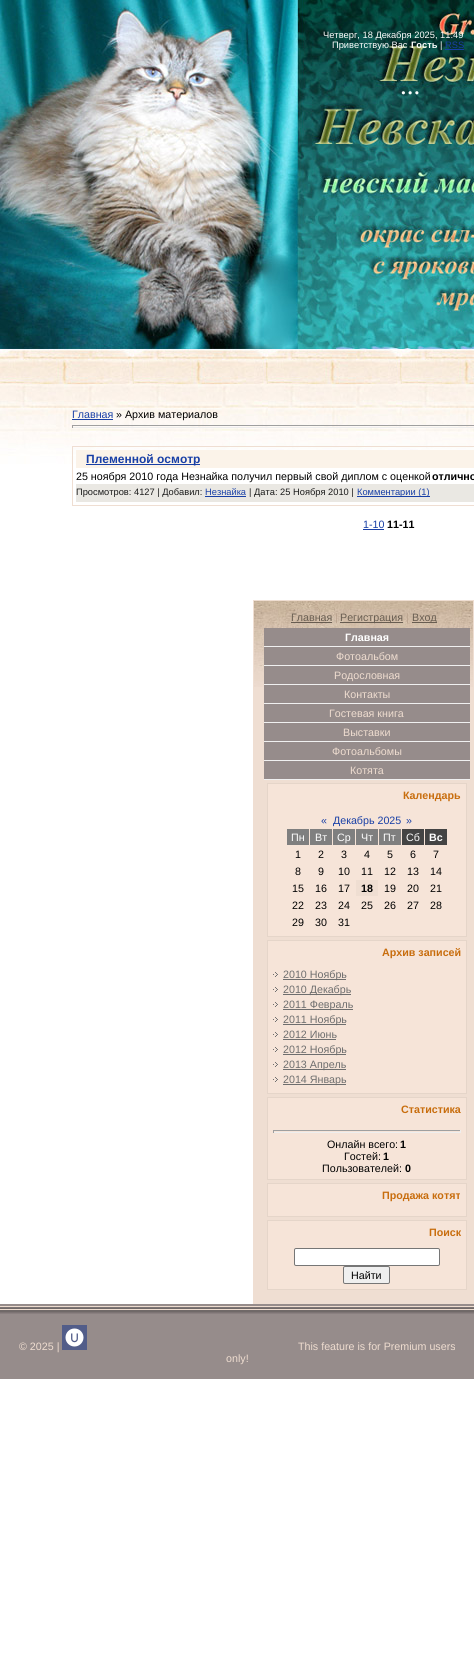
import math
import cairo


def use_color(cr, r, g, b):
  cr.set_source_rgb(r / 255, g / 255, b / 255)

def text(cr, x, y, s, family, size, color, bold=False, italic=False):
  cr.select_font_face(family, cairo.FONT_SLANT_ITALIC if italic else cairo.FONT_SLANT_NORMAL, cairo.FONT_WEIGHT_BOLD if bold else cairo.FONT_WEIGHT_NORMAL)
  cr.set_font_size(size)
  use_color(cr, *color)
  cr.move_to(x, y)
  cr.show_text(s)

def box(cr, x, y, w, h, *color):
  use_color(cr, *color)
  cr.rectangle(x, y, w, h)
  cr.fill()

def round_rect(cr, x, y, w, h, r):
  cr.new_sub_path()
  for i, (u, v) in enumerate([(x + w - r, y + h - r), (x + r, y + h - r), (x + r, y + r), (x + w - r, y + r)]):
    cr.arc(u, v, r, i * math.pi / 2, (i + 1) * math.pi / 2)
  cr.close_path()

def picture(cr, path, x, y, w, h):
  cr.save()
  cr.set_source_surface(cairo.ImageSurface.create_from_png(path), x, y)
  cr.rectangle(x, y, w, h)
  cr.fill()
  cr.restore()

def draw(cr):
  use_color(cr, 255, 255, 255)
  cr.paint()
  picture(cr, "img_02.png", 0, 0, 474, 349)
  box(cr, 445, 49, 19, 1, 24, 63, 166)
  picture(cr, "img_01.png", 0, 349, 474, 115)
  box(cr, 72, 419, 41, 1, 24, 63, 166)
  box(cr, 72, 425, 402, 1, 159, 159, 159)
  box(cr, 72, 427, 402, 1, 238, 238, 238)
  box(cr, 72, 425, 1, 3, 159, 159, 159)
  cr.rectangle(72.5, 446.5, 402, 59)
  use_color(cr, 239, 222, 210)
  cr.set_line_width(1)
  cr.stroke()
  box(cr, 76, 450, 398, 18, 251, 243, 233)
  box(cr, 86, 464, 114, 1, 24, 63, 166)
  box(cr, 76, 484, 398, 18, 234, 232, 227)
  box(cr, 205, 496, 41, 1, 24, 63, 166)
  box(cr, 357, 496, 73, 1, 24, 63, 166)
  box(cr, 363, 529, 21, 1, 24, 63, 166)
  box(cr, 254, 687, 219, 616, 239, 222, 210)
  picture(cr, "img_03.png", 254, 601, 219, 86)
  cr.rectangle(253.5, 600.5, 220, 703)
  cr.stroke()
  box(cr, 291, 622, 41, 1, 104, 93, 81)
  box(cr, 340, 622, 63, 1, 104, 93, 81)
  box(cr, 412, 622, 25, 1, 104, 93, 81)
  box(cr, 264, 628, 206, 18, 150, 140, 139)
  box(cr, 264, 646, 206, 1, 240, 240, 240)
  box(cr, 264, 647, 206, 18, 150, 140, 139)
  box(cr, 264, 665, 206, 1, 240, 240, 240)
  box(cr, 264, 666, 206, 18, 150, 140, 139)
  box(cr, 264, 684, 206, 1, 240, 240, 240)
  box(cr, 264, 685, 206, 18, 150, 140, 139)
  box(cr, 264, 703, 206, 1, 240, 240, 240)
  box(cr, 264, 704, 206, 18, 150, 140, 139)
  box(cr, 264, 722, 206, 1, 240, 240, 240)
  box(cr, 264, 723, 206, 18, 150, 140, 139)
  box(cr, 264, 741, 206, 1, 240, 240, 240)
  box(cr, 264, 742, 206, 18, 150, 140, 139)
  box(cr, 264, 760, 206, 1, 240, 240, 240)
  box(cr, 264, 761, 206, 18, 150, 140, 139)
  box(cr, 264, 779, 206, 1, 240, 240, 240)
  use_color(cr, 246, 228, 216)
  cr.rectangle(267.5, 783.5, 199, 153)
  cr.fill_preserve()
  use_color(cr, 229, 213, 201)
  cr.stroke()
  box(cr, 287, 829, 22, 16, 127, 127, 127)
  box(cr, 310, 829, 22, 16, 127, 127, 127)
  box(cr, 333, 829, 22, 16, 127, 127, 127)
  box(cr, 356, 829, 22, 16, 127, 127, 127)
  box(cr, 379, 829, 22, 16, 127, 127, 127)
  box(cr, 402, 829, 22, 16, 68, 68, 68)
  box(cr, 425, 829, 22, 16, 68, 68, 68)
  box(cr, 356, 880, 22, 16, 239, 222, 210)
  use_color(cr, 246, 228, 216)
  cr.rectangle(267.5, 940.5, 199, 153)
  cr.fill_preserve()
  use_color(cr, 229, 213, 201)
  cr.stroke()
  picture(cr, "img_04.png", 273, 972, 5, 5)
  box(cr, 283, 979, 63, 1, 110, 110, 110)
  picture(cr, "img_04.png", 273, 987, 5, 5)
  box(cr, 283, 994, 68, 1, 110, 110, 110)
  picture(cr, "img_04.png", 273, 1002, 5, 5)
  box(cr, 283, 1009, 70, 1, 110, 110, 110)
  picture(cr, "img_04.png", 273, 1017, 5, 5)
  box(cr, 283, 1024, 63, 1, 110, 110, 110)
  picture(cr, "img_04.png", 273, 1032, 5, 5)
  box(cr, 283, 1039, 53, 1, 110, 110, 110)
  picture(cr, "img_04.png", 273, 1047, 5, 5)
  box(cr, 283, 1054, 63, 1, 110, 110, 110)
  picture(cr, "img_04.png", 273, 1062, 5, 5)
  box(cr, 283, 1069, 63, 1, 110, 110, 110)
  picture(cr, "img_04.png", 273, 1077, 5, 5)
  box(cr, 283, 1084, 63, 1, 110, 110, 110)
  use_color(cr, 246, 228, 216)
  cr.rectangle(267.5, 1097.5, 199, 82)
  cr.fill_preserve()
  use_color(cr, 229, 213, 201)
  cr.stroke()
  box(cr, 273, 1130, 188, 1, 159, 159, 159)
  box(cr, 460, 1130, 1, 3, 238, 238, 238)
  box(cr, 273, 1132, 188, 1, 238, 238, 238)
  box(cr, 273, 1130, 1, 3, 159, 159, 159)
  use_color(cr, 246, 228, 216)
  cr.rectangle(267.5, 1183.5, 199, 33)
  cr.fill_preserve()
  use_color(cr, 229, 213, 201)
  cr.stroke()
  use_color(cr, 246, 228, 216)
  cr.rectangle(267.5, 1220.5, 199, 69)
  cr.fill_preserve()
  use_color(cr, 229, 213, 201)
  cr.stroke()
  use_color(cr, 255, 255, 255)
  round_rect(cr, 294.5, 1248.5, 145, 17, 1.5)
  cr.fill_preserve()
  use_color(cr, 118, 118, 118)
  cr.stroke()
  use_color(cr, 239, 239, 239)
  round_rect(cr, 343.5, 1266.5, 46, 17, 1.5)
  cr.fill_preserve()
  use_color(cr, 118, 118, 118)
  cr.stroke()
  box(cr, 0, 1304, 474, 75, 150, 140, 139)
  picture(cr, "img_05.png", 0, 1306, 474, 8)
  picture(cr, "img_06.png", 62, 1325, 25, 25)
  text(cr, 323, 38, "Четверг, 18 Декабря 2025, 11:49", "Liberation Sans", 9.3, (255, 255, 255))
  text(cr, 332, 48, "Приветствую Вас", "Liberation Sans", 9.3, (255, 255, 255))
  text(cr, 411, 48, "Гость", "Liberation Sans", 9.3, (255, 255, 255), bold=True)
  text(cr, 440, 48, "|", "Liberation Sans", 9.3, (255, 255, 255))
  text(cr, 445, 48, "RSS", "Liberation Sans", 9.3, (24, 63, 166))
  text(cr, 400, 94, "...", "Liberation Serif", 27, (255, 255, 255))
  text(cr, 72, 418, "Главная", "Liberation Sans", 10.7, (24, 63, 166))
  text(cr, 116, 418, "» Архив материалов", "Liberation Sans", 10.7, (0, 0, 0))
  text(cr, 86, 463, "Племенной осмотр", "Liberation Sans", 12, (24, 63, 166), bold=True)
  text(cr, 76, 480, "25 ноября 2010 года Незнайка получил первый свой диплом с оценкой", "Liberation Sans", 10.7, (0, 0, 0))
  text(cr, 432, 480, "отлично", "Liberation Sans", 10.7, (0, 0, 0), bold=True)
  text(cr, 76, 495, "Просмотров: 4127 | Добавил:", "Liberation Sans", 9.3, (26, 26, 26))
  text(cr, 205, 495, "Незнайка", "Liberation Sans", 9.3, (24, 63, 166))
  text(cr, 249, 495, "| Дата: 25 Ноября 2010 |", "Liberation Sans", 9.3, (26, 26, 26))
  text(cr, 357, 495, "Комментарии (1)", "Liberation Sans", 9.3, (24, 63, 166))
  text(cr, 363, 528, "1-10", "Liberation Sans", 10.7, (24, 63, 166))
  text(cr, 387, 528, "11-11", "Liberation Sans", 10.7, (0, 0, 0), bold=True)
  text(cr, 291, 621, "Главная", "Liberation Sans", 10.7, (104, 93, 81))
  text(cr, 335, 621, "|", "Liberation Sans", 10.7, (186, 164, 143))
  text(cr, 340, 621, "Регистрация", "Liberation Sans", 10.7, (104, 93, 81))
  text(cr, 406, 621, "|", "Liberation Sans", 10.7, (186, 164, 143))
  text(cr, 412, 621, "Вход", "Liberation Sans", 10.7, (104, 93, 81))
  text(cr, 345, 641, "Главная", "Liberation Sans", 10.7, (255, 255, 255), bold=True)
  text(cr, 336, 660, "Фотоальбом", "Liberation Sans", 10.7, (239, 221, 208))
  text(cr, 334, 679, "Родословная", "Liberation Sans", 10.7, (239, 221, 208))
  text(cr, 344, 698, "Контакты", "Liberation Sans", 10.7, (239, 221, 208))
  text(cr, 329, 717, "Гостевая книга", "Liberation Sans", 10.7, (239, 221, 208))
  text(cr, 343, 736, "Выставки", "Liberation Sans", 10.7, (239, 221, 208))
  text(cr, 332, 755, "Фотоальбомы", "Liberation Sans", 10.7, (239, 221, 208))
  text(cr, 350, 774, "Котята", "Liberation Sans", 10.7, (239, 221, 208))
  text(cr, 403, 799, "Календарь", "Liberation Sans", 10.7, (200, 109, 13), bold=True)
  text(cr, 321, 824, "«", "Liberation Sans", 10.7, (24, 63, 166))
  text(cr, 333, 824, "Декабрь 2025", "Liberation Sans", 10.7, (24, 63, 166))
  text(cr, 406, 824, "»", "Liberation Sans", 10.7, (24, 63, 166))
  text(cr, 291, 841, "Пн", "Liberation Sans", 10.7, (255, 255, 255))
  text(cr, 315, 841, "Вт", "Liberation Sans", 10.7, (255, 255, 255))
  text(cr, 337, 841, "Ср", "Liberation Sans", 10.7, (255, 255, 255))
  text(cr, 361, 841, "Чт", "Liberation Sans", 10.7, (255, 255, 255))
  text(cr, 383, 841, "Пт", "Liberation Sans", 10.7, (255, 255, 255))
  text(cr, 406, 841, "Сб", "Liberation Sans", 10.7, (255, 255, 255))
  text(cr, 429, 841, "Вс", "Liberation Sans", 10.7, (255, 255, 255), bold=True)
  text(cr, 295, 858, "1", "Liberation Sans", 10.7, (0, 0, 0))
  text(cr, 318, 858, "2", "Liberation Sans", 10.7, (0, 0, 0))
  text(cr, 341, 858, "3", "Liberation Sans", 10.7, (0, 0, 0))
  text(cr, 364, 858, "4", "Liberation Sans", 10.7, (0, 0, 0))
  text(cr, 387, 858, "5", "Liberation Sans", 10.7, (0, 0, 0))
  text(cr, 410, 858, "6", "Liberation Sans", 10.7, (0, 0, 0))
  text(cr, 433, 858, "7", "Liberation Sans", 10.7, (0, 0, 0))
  text(cr, 295, 875, "8", "Liberation Sans", 10.7, (0, 0, 0))
  text(cr, 318, 875, "9", "Liberation Sans", 10.7, (0, 0, 0))
  text(cr, 338, 875, "10", "Liberation Sans", 10.7, (0, 0, 0))
  text(cr, 361, 875, "11", "Liberation Sans", 10.7, (0, 0, 0))
  text(cr, 384, 875, "12", "Liberation Sans", 10.7, (0, 0, 0))
  text(cr, 407, 875, "13", "Liberation Sans", 10.7, (0, 0, 0))
  text(cr, 430, 875, "14", "Liberation Sans", 10.7, (0, 0, 0))
  text(cr, 292, 892, "15", "Liberation Sans", 10.7, (0, 0, 0))
  text(cr, 315, 892, "16", "Liberation Sans", 10.7, (0, 0, 0))
  text(cr, 338, 892, "17", "Liberation Sans", 10.7, (0, 0, 0))
  text(cr, 361, 892, "18", "Liberation Sans", 10.7, (0, 0, 0), bold=True)
  text(cr, 384, 892, "19", "Liberation Sans", 10.7, (0, 0, 0))
  text(cr, 407, 892, "20", "Liberation Sans", 10.7, (0, 0, 0))
  text(cr, 430, 892, "21", "Liberation Sans", 10.7, (0, 0, 0))
  text(cr, 292, 909, "22", "Liberation Sans", 10.7, (0, 0, 0))
  text(cr, 315, 909, "23", "Liberation Sans", 10.7, (0, 0, 0))
  text(cr, 338, 909, "24", "Liberation Sans", 10.7, (0, 0, 0))
  text(cr, 361, 909, "25", "Liberation Sans", 10.7, (0, 0, 0))
  text(cr, 384, 909, "26", "Liberation Sans", 10.7, (0, 0, 0))
  text(cr, 407, 909, "27", "Liberation Sans", 10.7, (0, 0, 0))
  text(cr, 430, 909, "28", "Liberation Sans", 10.7, (0, 0, 0))
  text(cr, 292, 926, "29", "Liberation Sans", 10.7, (0, 0, 0))
  text(cr, 315, 926, "30", "Liberation Sans", 10.7, (0, 0, 0))
  text(cr, 338, 926, "31", "Liberation Sans", 10.7, (0, 0, 0))
  text(cr, 382, 956, "Архив записей", "Liberation Sans", 10.7, (200, 109, 13), bold=True)
  text(cr, 283, 978, "2010 Ноябрь", "Liberation Sans", 10.7, (110, 110, 110))
  text(cr, 283, 993, "2010 Декабрь", "Liberation Sans", 10.7, (110, 110, 110))
  text(cr, 283, 1008, "2011 Февраль", "Liberation Sans", 10.7, (110, 110, 110))
  text(cr, 283, 1023, "2011 Ноябрь", "Liberation Sans", 10.7, (110, 110, 110))
  text(cr, 283, 1038, "2012 Июнь", "Liberation Sans", 10.7, (110, 110, 110))
  text(cr, 283, 1053, "2012 Ноябрь", "Liberation Sans", 10.7, (110, 110, 110))
  text(cr, 283, 1068, "2013 Апрель", "Liberation Sans", 10.7, (110, 110, 110))
  text(cr, 283, 1083, "2014 Январь", "Liberation Sans", 10.7, (110, 110, 110))
  text(cr, 401, 1113, "Статистика", "Liberation Sans", 10.7, (200, 109, 13), bold=True)
  text(cr, 327, 1148, "Онлайн всего:", "Liberation Sans", 10.7, (0, 0, 0))
  text(cr, 400, 1148, "1", "Liberation Sans", 10.7, (0, 0, 0), bold=True)
  text(cr, 344, 1160, "Гостей:", "Liberation Sans", 10.7, (0, 0, 0))
  text(cr, 383, 1160, "1", "Liberation Sans", 10.7, (0, 0, 0), bold=True)
  text(cr, 322, 1172, "Пользователей:", "Liberation Sans", 10.7, (0, 0, 0))
  text(cr, 405, 1172, "0", "Liberation Sans", 10.7, (0, 0, 0), bold=True)
  text(cr, 382, 1199, "Продажа котят", "Liberation Sans", 10.7, (200, 109, 13), bold=True)
  text(cr, 429, 1236, "Поиск", "Liberation Sans", 10.7, (200, 109, 13), bold=True)
  text(cr, 351, 1279, "Найти", "Liberation Sans", 10.7, (0, 0, 0))
  text(cr, 19, 1350, "© 2025 |", "Liberation Sans", 10.7, (239, 221, 208))
  text(cr, 298, 1350, "This feature is for Premium users", "Liberation Sans", 10.7, (239, 221, 208))
  text(cr, 226, 1362, "only!", "Liberation Sans", 10.7, (239, 221, 208))


surface = cairo.ImageSurface(cairo.FORMAT_RGB24, 474, 1665)
cr = cairo.Context(surface)
options = cairo.FontOptions()
options.set_hint_metrics(cairo.HINT_METRICS_OFF)
options.set_hint_style(cairo.HINT_STYLE_NONE)
cr.set_font_options(options)
cr.set_miter_limit(4)
draw(cr)
surface.write_to_png("out.png")
